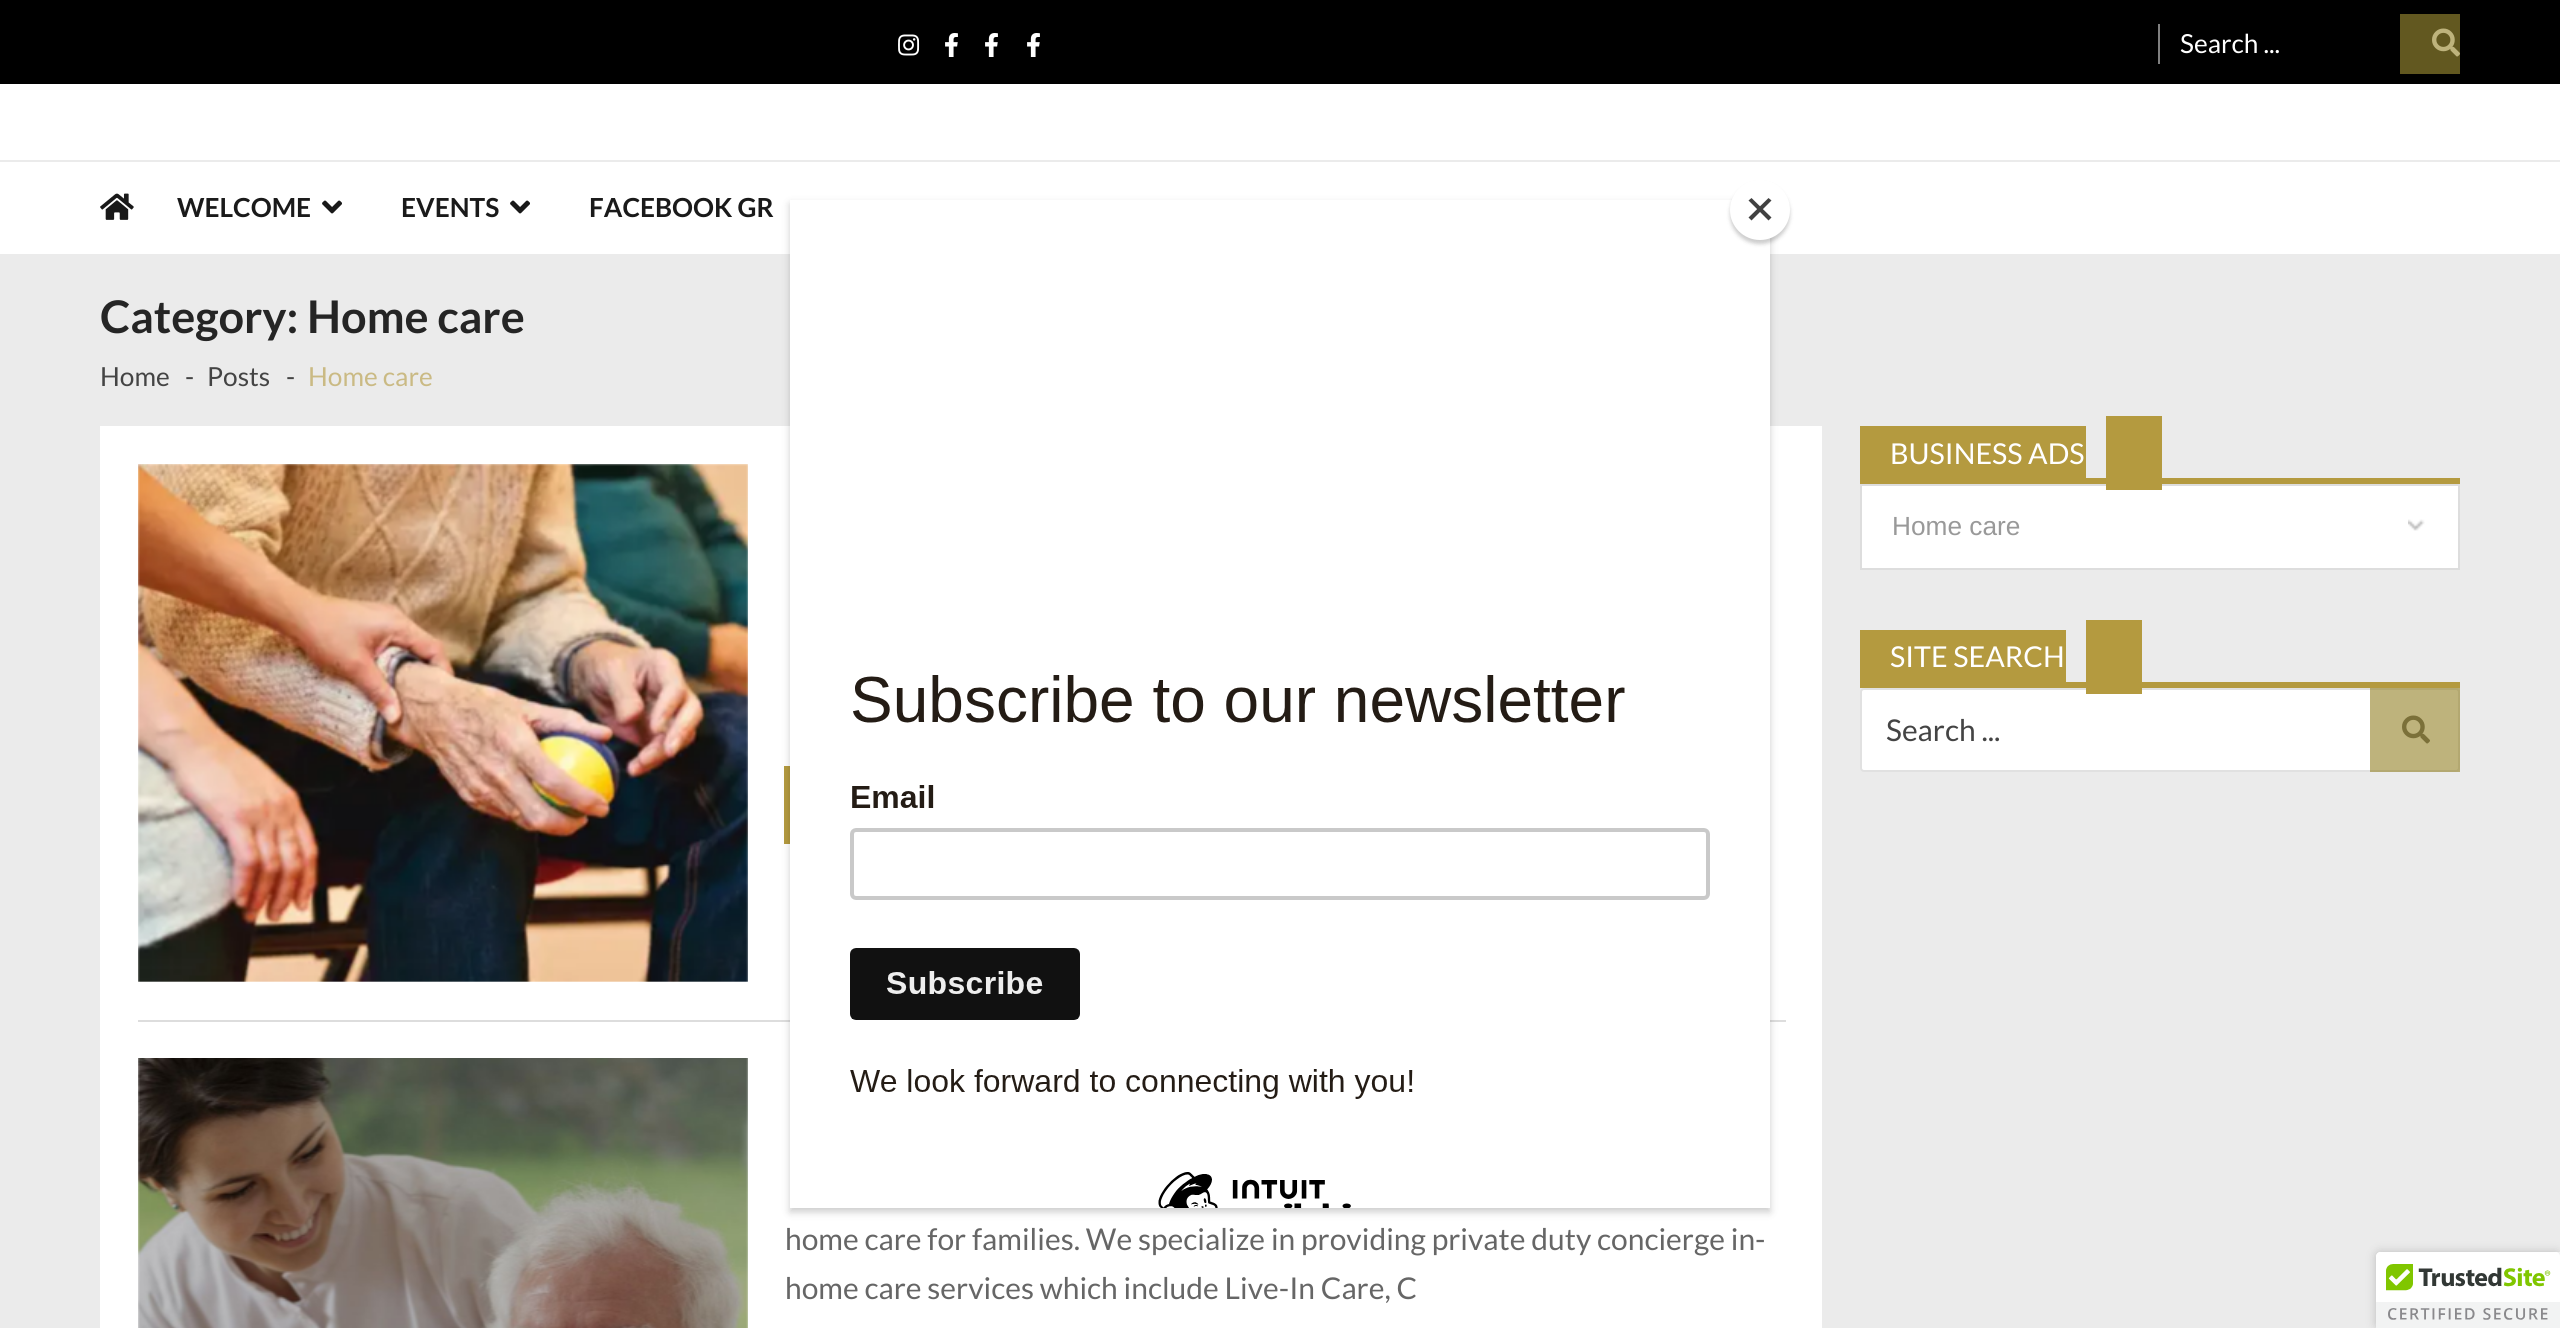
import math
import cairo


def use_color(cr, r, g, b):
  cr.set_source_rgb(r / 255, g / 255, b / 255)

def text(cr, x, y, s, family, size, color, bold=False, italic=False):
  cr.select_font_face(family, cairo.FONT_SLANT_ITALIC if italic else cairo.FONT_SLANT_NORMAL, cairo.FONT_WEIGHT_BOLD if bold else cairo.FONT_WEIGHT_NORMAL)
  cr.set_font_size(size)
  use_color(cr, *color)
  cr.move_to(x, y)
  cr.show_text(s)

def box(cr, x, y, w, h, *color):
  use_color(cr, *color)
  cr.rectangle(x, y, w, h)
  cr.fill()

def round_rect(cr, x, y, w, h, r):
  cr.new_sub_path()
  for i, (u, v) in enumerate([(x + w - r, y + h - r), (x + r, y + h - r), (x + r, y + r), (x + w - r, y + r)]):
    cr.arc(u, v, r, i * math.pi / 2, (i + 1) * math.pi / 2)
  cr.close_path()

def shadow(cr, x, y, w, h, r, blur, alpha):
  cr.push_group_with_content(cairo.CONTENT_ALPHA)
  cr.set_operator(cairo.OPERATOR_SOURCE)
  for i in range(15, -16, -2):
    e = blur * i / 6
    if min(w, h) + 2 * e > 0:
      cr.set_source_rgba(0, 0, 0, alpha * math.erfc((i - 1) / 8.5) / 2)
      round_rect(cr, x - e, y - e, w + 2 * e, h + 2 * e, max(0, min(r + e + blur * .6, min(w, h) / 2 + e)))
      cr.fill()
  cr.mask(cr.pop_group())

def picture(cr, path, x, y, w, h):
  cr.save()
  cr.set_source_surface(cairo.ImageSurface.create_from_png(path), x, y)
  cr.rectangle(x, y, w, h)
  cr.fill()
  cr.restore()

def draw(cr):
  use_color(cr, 235, 235, 235)
  cr.paint()
  box(cr, 0, 0, 2560, 84, 0, 0, 0)
  box(cr, 2400, 14, 60, 60, 98, 88, 32)
  picture(cr, "img_01.png", 898, 34, 22, 22)
  picture(cr, "img_02.png", 945, 33, 13, 24)
  picture(cr, "img_02.png", 985, 33, 13, 24)
  picture(cr, "img_02.png", 1027, 33, 13, 24)
  box(cr, 2158, 24, 2, 40, 128, 128, 128)
  picture(cr, "img_03.png", 2432, 28, 28, 29)
  box(cr, 0, 84, 2560, 76, 255, 255, 255)
  box(cr, 0, 162, 2560, 92, 255, 255, 255)
  picture(cr, "img_04.png", 100, 193, 34, 27)
  picture(cr, "img_05.png", 322, 200, 20, 14)
  picture(cr, "img_05.png", 510, 200, 20, 14)
  box(cr, 1860, 426, 226, 52, 180, 154, 63)
  box(cr, 1860, 478, 600, 6, 180, 154, 63)
  box(cr, 1862, 486, 596, 82, 255, 255, 255)
  picture(cr, "img_06.png", 2408, 519, 17, 12)
  cr.rectangle(1861, 485, 598, 84)
  use_color(cr, 221, 221, 221)
  cr.stroke()
  box(cr, 2106, 416, 56, 74, 180, 154, 63)
  box(cr, 1860, 630, 206, 52, 180, 154, 63)
  box(cr, 1860, 682, 600, 6, 180, 154, 63)
  use_color(cr, 255, 255, 255)
  round_rect(cr, 1861, 689, 598, 82, 3)
  cr.fill_preserve()
  use_color(cr, 225, 225, 225)
  cr.stroke()
  box(cr, 2086, 620, 56, 74, 180, 154, 63)
  picture(cr, "img_07.png", 2402, 715, 28, 29)
  cr.set_source_rgba(0.6, 0.537, 0.196, 0.64)
  cr.rectangle(2370, 688, 90, 84)
  cr.fill()
  box(cr, 100, 426, 1722, 902, 255, 255, 255)
  box(cr, 138, 1020, 1648, 2, 221, 221, 221)
  picture(cr, "img_08.png", 138, 464, 610, 518)
  box(cr, 784, 766, 6, 78, 180, 154, 63)
  picture(cr, "img_09.png", 138, 1058, 610, 270)
  use_color(cr, 0, 0, 0)
  shadow(cr, 790, 204, 980, 1008, 0, 4, 0.2)
  picture(cr, "img_10.png", 790, 200, 980, 1008)
  shadow(cr, 1730, 184, 60, 60, 30, 2, 0.2)
  use_color(cr, 255, 255, 255)
  cr.arc(1760, 210, 30, 0, 2 * math.pi)
  cr.fill()
  use_color(cr, 65, 65, 65)
  cr.new_path()
  cr.move_to(1768.5, 198)
  cr.line_to(1771.5, 200.5)
  cr.line_to(1751.5, 220.5)
  cr.line_to(1748.5, 217.5)
  cr.close_path()
  cr.fill()
  cr.new_path()
  cr.move_to(1748.5, 200.5)
  cr.line_to(1751.5, 198)
  cr.line_to(1771.5, 217.5)
  cr.line_to(1768.5, 220.5)
  cr.close_path()
  cr.fill()
  use_color(cr, 0, 0, 0)
  shadow(cr, 2376, 1252, 184, 76, 4, 5, 0.2)
  use_color(cr, 255, 255, 255)
  cr.new_path()
  cr.move_to(2380, 1252)
  cr.line_to(2560, 1252)
  cr.line_to(2560, 1328)
  cr.line_to(2376, 1328)
  cr.line_to(2376, 1256)
  cr.curve_to(2376, 1254, 2378, 1252, 2380, 1252)
  cr.close_path()
  cr.fill()
  picture(cr, "img_11.png", 2376, 1252, 184, 76)
  text(cr, 2180, 53, "Search ...", "Lato", 26.25, (255, 255, 255))
  text(cr, 177, 217, "WELCOME", "Lato", 26.25, (26, 26, 26), bold=True)
  text(cr, 401, 217, "EVENTS", "Lato", 26.25, (26, 26, 26), bold=True)
  text(cr, 589, 217, "FACEBOOK GR", "Lato", 26.25, (26, 26, 26), bold=True)
  text(cr, 100, 333, "Category: Home care", "Lato", 45, (37, 37, 37), bold=True)
  text(cr, 100, 386, "Home", "Lato", 26.25, (68, 68, 68))
  text(cr, 185, 386, "-", "Lato", 26.25, (68, 68, 68))
  text(cr, 207, 386, "Posts", "Lato", 26.25, (68, 68, 68))
  text(cr, 286, 386, "-", "Lato", 26.25, (68, 68, 68))
  text(cr, 308, 386, "Home care", "Lato", 26.25, (202, 186, 132))
  text(cr, 1890, 464, "BUSINESS ADS", "Lato", 28.75, (255, 255, 255))
  text(cr, 1892, 535, "Home care", "Liberation Sans", 26.25, (153, 153, 153))
  text(cr, 1890, 667, "SITE SEARCH", "Lato", 28.75, (255, 255, 255))
  text(cr, 1886, 741, "Search ...", "Lato", 30, (68, 68, 68))
  text(cr, 785, 1250, "home care for families. We specialize in providing private duty concierge in-", "Lato", 30, (102, 102, 102))
  text(cr, 785, 1299, "home care services which include Live-In Care, C", "Lato", 30, (102, 102, 102))


surface = cairo.ImageSurface(cairo.FORMAT_RGB24, 2560, 1328)
cr = cairo.Context(surface)
options = cairo.FontOptions()
options.set_hint_metrics(cairo.HINT_METRICS_OFF)
options.set_hint_style(cairo.HINT_STYLE_NONE)
cr.set_font_options(options)
cr.set_miter_limit(4)
draw(cr)
surface.write_to_png("out.png")
